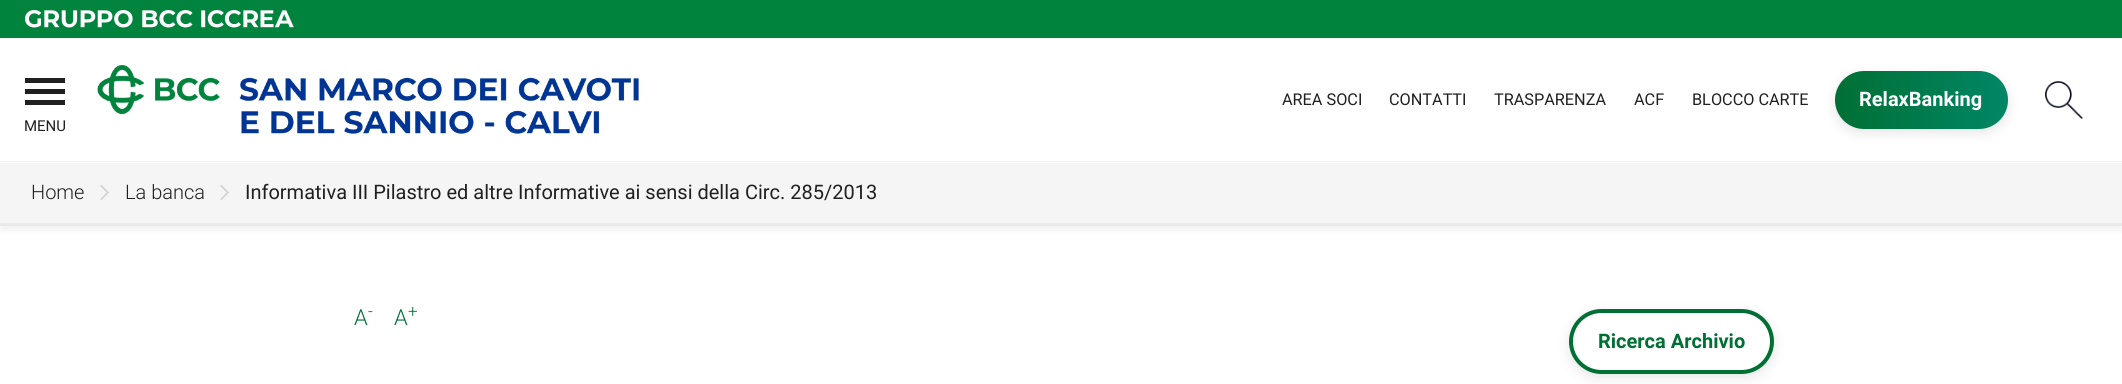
import math
import cairo


def use_color(cr, r, g, b):
  cr.set_source_rgb(r / 255, g / 255, b / 255)

def text(cr, x, y, s, family, size, color, bold=False, italic=False):
  cr.select_font_face(family, cairo.FONT_SLANT_ITALIC if italic else cairo.FONT_SLANT_NORMAL, cairo.FONT_WEIGHT_BOLD if bold else cairo.FONT_WEIGHT_NORMAL)
  cr.set_font_size(size)
  use_color(cr, *color)
  cr.move_to(x, y)
  cr.show_text(s)

def box(cr, x, y, w, h, *color):
  use_color(cr, *color)
  cr.rectangle(x, y, w, h)
  cr.fill()

def round_rect(cr, x, y, w, h, r):
  cr.new_sub_path()
  for i, (u, v) in enumerate([(x + w - r, y + h - r), (x + r, y + h - r), (x + r, y + r), (x + w - r, y + r)]):
    cr.arc(u, v, r, i * math.pi / 2, (i + 1) * math.pi / 2)
  cr.close_path()

def shadow(cr, x, y, w, h, r, blur, alpha):
  cr.push_group_with_content(cairo.CONTENT_ALPHA)
  cr.set_operator(cairo.OPERATOR_SOURCE)
  for i in range(15, -16, -2):
    e = blur * i / 6
    if min(w, h) + 2 * e > 0:
      cr.set_source_rgba(0, 0, 0, alpha * math.erfc((i - 1) / 8.5) / 2)
      round_rect(cr, x - e, y - e, w + 2 * e, h + 2 * e, max(0, min(r + e + blur * .6, min(w, h) / 2 + e)))
      cr.fill()
  cr.mask(cr.pop_group())

def picture(cr, path, x, y, w, h):
  cr.save()
  cr.set_source_surface(cairo.ImageSurface.create_from_png(path), x, y)
  cr.rectangle(x, y, w, h)
  cr.fill()
  cr.restore()

def draw(cr):
  use_color(cr, 255, 255, 255)
  cr.paint()
  box(cr, 0, 0, 2122, 38, 0, 132, 61)
  picture(cr, "img_01.png", 25, 10, 269, 18)
  use_color(cr, 0, 0, 0)
  shadow(cr, 0, 169, 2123, 62, 0, 3, 0.05)
  box(cr, 0, 161, 2122, 1, 241, 241, 241)
  picture(cr, "img_02.png", 97, 65, 542, 69)
  use_color(cr, 0, 0, 0)
  shadow(cr, 1835, 75, 173, 58, 29, 6, 0.1)
  gradient = cairo.LinearGradient(2008, 100, 1835, 100)
  gradient.add_color_stop_rgba(0, 0, 0.529, 0.4, 1)
  gradient.add_color_stop_rgba(1, 0, 0.435, 0.204, 1)
  cr.set_source(gradient)
  round_rect(cr, 1835, 71, 173, 58, 29)
  cr.fill()
  picture(cr, "img_03.png", 2045, 81, 38, 38)
  box(cr, 25, 89, 40, 5, 32, 32, 32)
  box(cr, 25, 78, 40, 5, 32, 32, 32)
  box(cr, 25, 100, 40, 5, 32, 32, 32)
  box(cr, 0, 163, 2122, 60, 245, 245, 245)
  box(cr, 0, 223, 2122, 3, 233, 233, 233)
  picture(cr, "img_04.png", 100, 185, 9, 15)
  picture(cr, "img_04.png", 220, 185, 9, 15)
  use_color(cr, 0, 0, 0)
  shadow(cr, 1569, 313, 205, 65, 32.5, 6, 0.1)
  use_color(cr, 255, 255, 255)
  round_rect(cr, 1571, 311, 201, 61, 30.5)
  cr.fill_preserve()
  use_color(cr, 0, 111, 52)
  cr.set_line_width(4)
  cr.stroke()
  text(cr, 1282, 105, "AREA SOCI", "Roboto", 16.25, (32, 32, 32))
  text(cr, 1389, 105, "CONTATTI", "Roboto", 16.25, (32, 32, 32))
  text(cr, 1494, 105, "TRASPARENZA", "Roboto", 16.25, (32, 32, 32))
  text(cr, 1634, 105, "ACF", "Roboto", 16.25, (32, 32, 32))
  text(cr, 1692, 105, "BLOCCO CARTE", "Roboto", 16.25, (32, 32, 32))
  text(cr, 1859, 106, "RelaxBanking", "Roboto", 20, (255, 255, 255), bold=True)
  text(cr, 24, 131, "MENU", "Roboto", 15, (32, 32, 32))
  text(cr, 31, 199, "Home", "Roboto Light", 20, (32, 32, 32))
  text(cr, 125, 199, "La banca", "Roboto Light", 20, (32, 32, 32))
  text(cr, 245, 199, "Informativa III Pilastro ed altre Informative ai sensi della Circ. 285/2013", "Roboto", 20, (32, 32, 32))
  text(cr, 354, 325, "A", "Roboto Light", 22, (0, 111, 52))
  text(cr, 368, 317, "-", "Roboto Light", 17, (0, 111, 52))
  text(cr, 394, 325, "A", "Roboto Light", 22, (0, 111, 52))
  text(cr, 408, 317, "+", "Roboto Light", 17, (0, 111, 52))
  text(cr, 1598, 348, "Ricerca Archivio", "Roboto", 20, (0, 111, 52), bold=True)


surface = cairo.ImageSurface(cairo.FORMAT_RGB24, 2122, 384)
cr = cairo.Context(surface)
options = cairo.FontOptions()
options.set_hint_metrics(cairo.HINT_METRICS_OFF)
options.set_hint_style(cairo.HINT_STYLE_NONE)
cr.set_font_options(options)
cr.set_miter_limit(4)
draw(cr)
surface.write_to_png("out.png")
